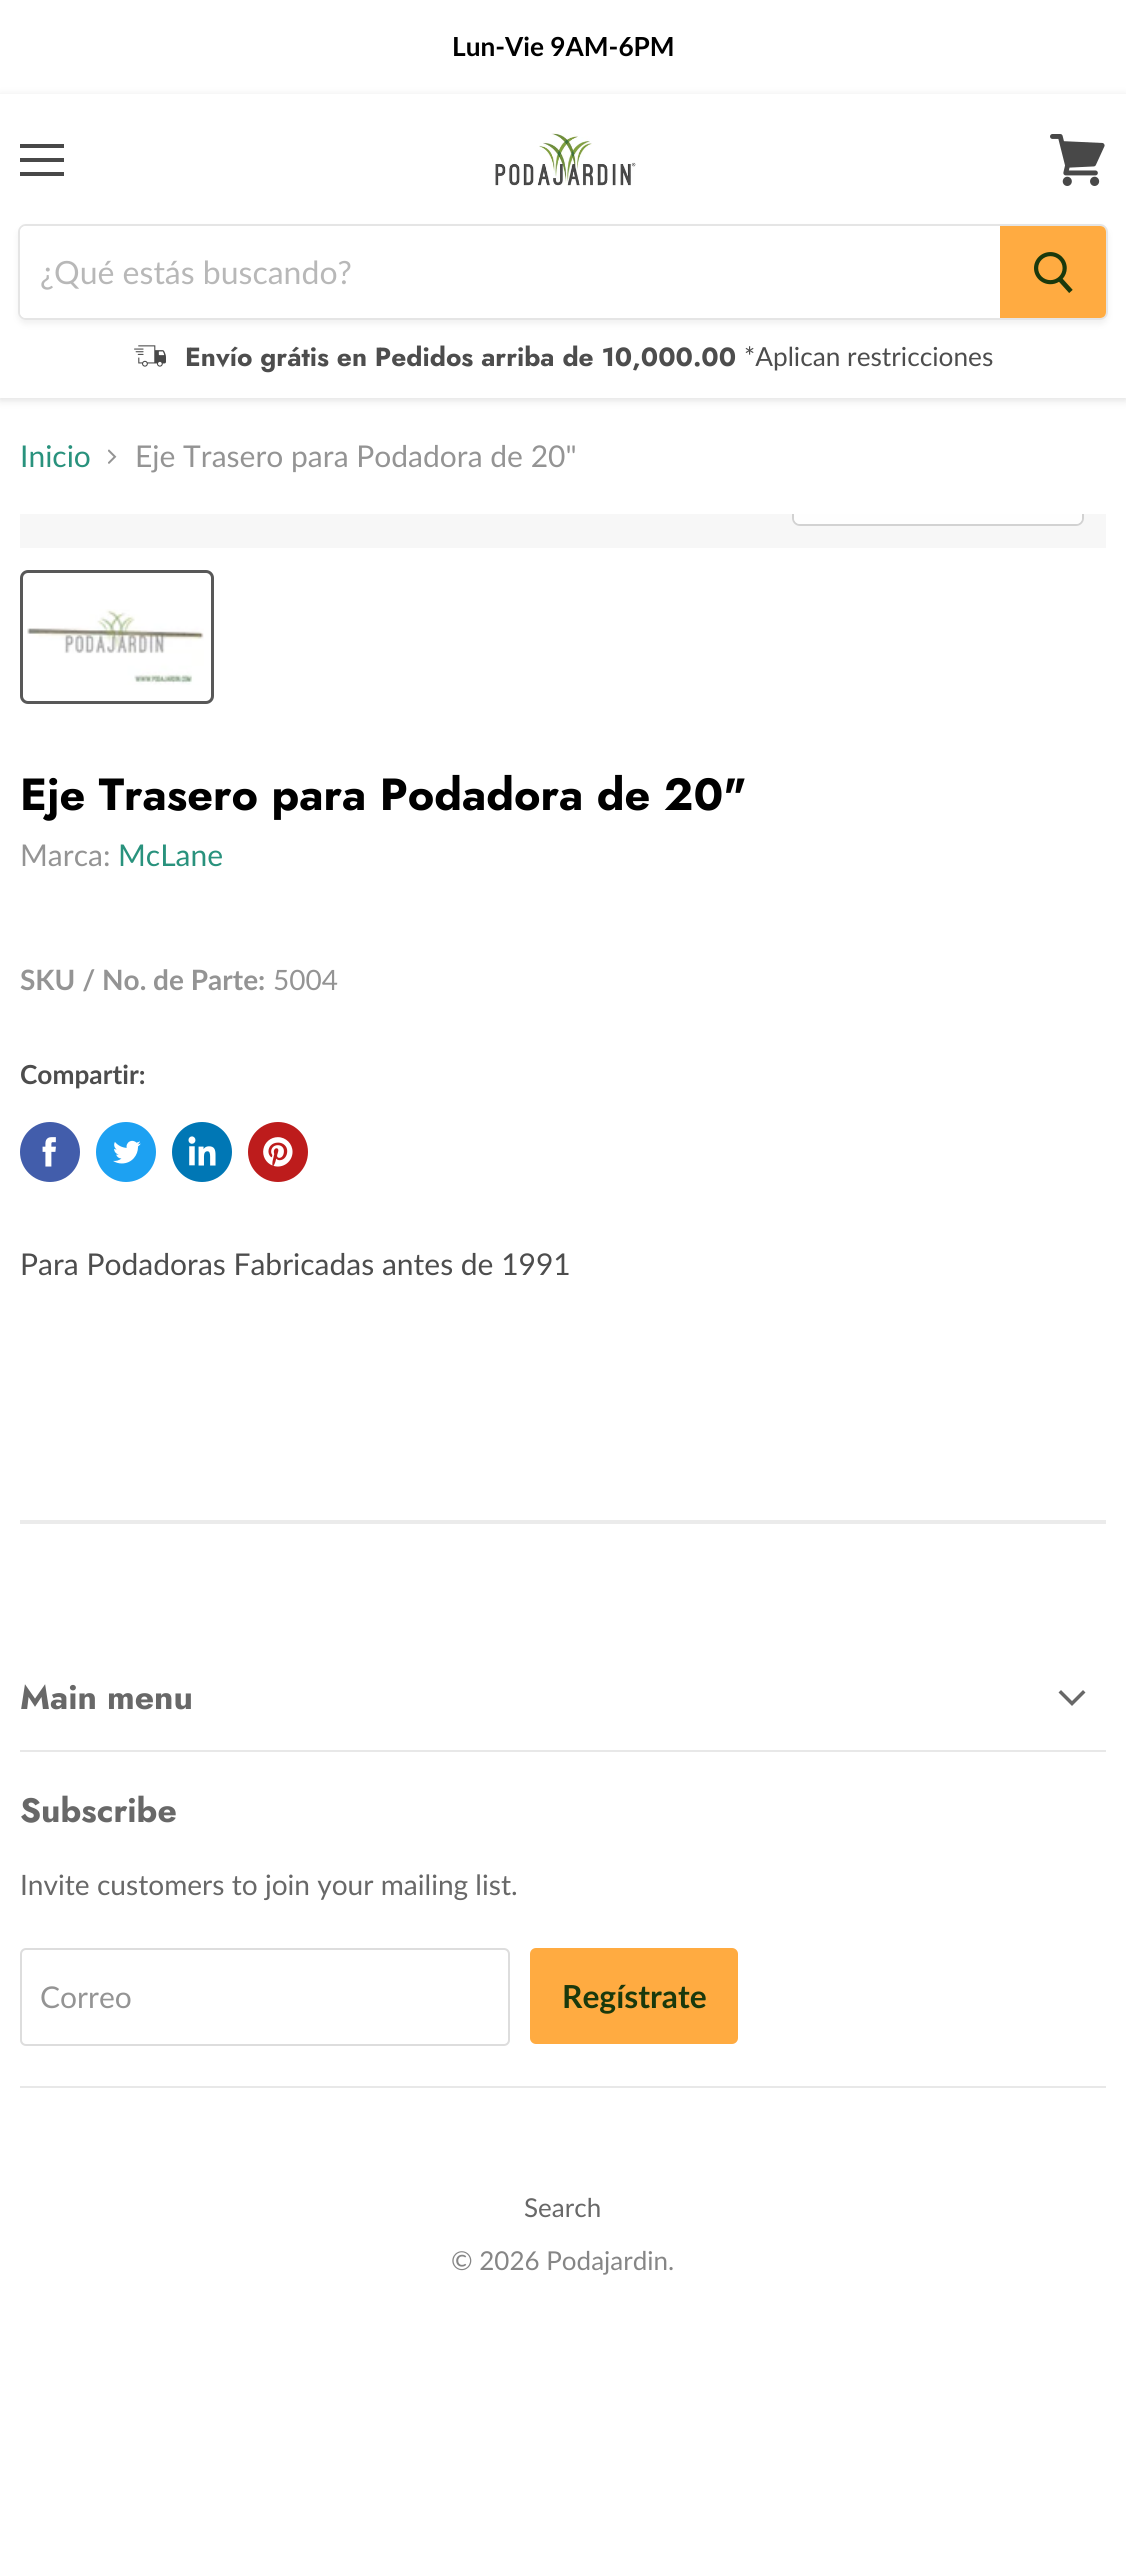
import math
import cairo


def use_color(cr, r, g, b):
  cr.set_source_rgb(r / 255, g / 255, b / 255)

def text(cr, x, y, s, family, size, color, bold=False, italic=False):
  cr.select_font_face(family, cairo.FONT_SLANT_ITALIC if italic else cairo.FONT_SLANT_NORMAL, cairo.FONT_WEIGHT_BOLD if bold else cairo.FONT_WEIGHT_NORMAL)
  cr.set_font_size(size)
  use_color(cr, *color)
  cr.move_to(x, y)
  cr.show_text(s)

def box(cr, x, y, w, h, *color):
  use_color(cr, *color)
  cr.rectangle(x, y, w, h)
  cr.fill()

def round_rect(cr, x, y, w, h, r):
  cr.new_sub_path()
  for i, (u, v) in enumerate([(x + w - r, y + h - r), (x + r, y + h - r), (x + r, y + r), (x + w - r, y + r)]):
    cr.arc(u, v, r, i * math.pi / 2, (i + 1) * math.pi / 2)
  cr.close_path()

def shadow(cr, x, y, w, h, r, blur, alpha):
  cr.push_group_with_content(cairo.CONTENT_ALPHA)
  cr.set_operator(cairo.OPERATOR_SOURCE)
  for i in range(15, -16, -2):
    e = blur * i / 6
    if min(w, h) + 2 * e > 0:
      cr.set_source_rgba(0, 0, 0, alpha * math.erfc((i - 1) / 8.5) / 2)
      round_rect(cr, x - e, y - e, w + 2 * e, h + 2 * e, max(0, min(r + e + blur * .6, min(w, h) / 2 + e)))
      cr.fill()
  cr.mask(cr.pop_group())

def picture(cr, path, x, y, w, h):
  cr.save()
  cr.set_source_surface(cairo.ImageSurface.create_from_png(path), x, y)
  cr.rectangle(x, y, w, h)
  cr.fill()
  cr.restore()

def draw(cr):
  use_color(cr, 255, 255, 255)
  cr.paint()
  cr.save()
  cr.set_fill_rule(cairo.FILL_RULE_EVEN_ODD)
  cr.new_path()
  cr.move_to(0, 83)
  cr.line_to(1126, 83)
  cr.line_to(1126, 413)
  cr.line_to(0, 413)
  cr.close_path()
  cr.move_to(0, 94)
  cr.line_to(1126, 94)
  cr.line_to(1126, 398)
  cr.line_to(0, 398)
  cr.close_path()
  cr.clip()
  use_color(cr, 127, 127, 127)
  shadow(cr, 0, 96, 1126, 304, 0, 4, 0.25)
  cr.restore()
  box(cr, 20, 144, 44, 4, 72, 72, 72)
  box(cr, 20, 158, 44, 4, 72, 72, 72)
  box(cr, 20, 172, 44, 4, 72, 72, 72)
  picture(cr, "img_01.png", 1050, 134, 55, 52)
  picture(cr, "img_02.png", 495, 133, 141, 53)
  cr.save()
  cr.set_fill_rule(cairo.FILL_RULE_EVEN_ODD)
  cr.new_path()
  cr.move_to(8, 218)
  cr.line_to(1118, 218)
  cr.line_to(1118, 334)
  cr.line_to(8, 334)
  cr.close_path()
  cr.move_to(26, 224)
  cr.line_to(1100, 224)
  cr.curve_to(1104.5, 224, 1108, 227.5, 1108, 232)
  cr.line_to(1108, 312)
  cr.curve_to(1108, 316.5, 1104.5, 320, 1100, 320)
  cr.line_to(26, 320)
  cr.curve_to(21.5, 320, 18, 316.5, 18, 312)
  cr.line_to(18, 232)
  cr.curve_to(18, 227.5, 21.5, 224, 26, 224)
  cr.close_path()
  cr.clip()
  use_color(cr, 127, 127, 127)
  shadow(cr, 18, 228, 1090, 96, 8, 3, 0.11)
  cr.restore()
  round_rect(cr, 19, 225, 1088, 94, 7)
  cr.set_source_rgba(0.498, 0.498, 0.498, 0.2)
  cr.stroke()
  use_color(cr, 255, 255, 255)
  cr.new_path()
  cr.move_to(26, 226)
  cr.line_to(1000, 226)
  cr.line_to(1000, 318)
  cr.line_to(26, 318)
  cr.curve_to(22.5, 318, 20, 315.5, 20, 312)
  cr.line_to(20, 232)
  cr.curve_to(20, 228.5, 22.5, 226, 26, 226)
  cr.close_path()
  cr.fill()
  use_color(cr, 255, 171, 65)
  cr.new_path()
  cr.move_to(1001, 227)
  cr.line_to(1100, 227)
  cr.curve_to(1103, 227, 1105, 229, 1105, 232)
  cr.line_to(1105, 312)
  cr.curve_to(1105, 315, 1103, 317, 1100, 317)
  cr.line_to(1001, 317)
  cr.close_path()
  cr.fill_preserve()
  cr.stroke()
  picture(cr, "img_03.png", 1034, 252, 39, 41)
  picture(cr, "img_04.png", 134, 345, 32, 22)
  picture(cr, "img_05.png", 108, 449, 9, 15)
  box(cr, 20, 514, 1086, 34, 247, 247, 247)
  cr.save()
  cr.rectangle(20, 514, 1086, 34)
  cr.clip()
  round_rect(cr, 793, 469, 290, 56, 7)
  use_color(cr, 210, 210, 210)
  cr.stroke()
  cr.restore()
  cr.set_source_rgba(1, 1, 1, 0.9)
  cr.new_path()
  cr.move_to(794, 514)
  cr.line_to(1082, 514)
  cr.line_to(1082, 518)
  cr.curve_to(1082, 521.5, 1079.5, 524, 1076, 524)
  cr.line_to(800, 524)
  cr.curve_to(796.5, 524, 794, 521.5, 794, 518)
  cr.close_path()
  cr.fill()
  round_rect(cr, 21.5, 571.5, 191, 131, 6.5)
  use_color(cr, 88, 88, 88)
  cr.set_line_width(3)
  cr.stroke()
  picture(cr, "img_06.png", 27, 609, 177, 76)
  use_color(cr, 66, 93, 171)
  cr.arc(50, 1152, 30, 0, 2 * math.pi)
  cr.fill()
  picture(cr, "img_07.png", 42, 1137, 14, 30)
  use_color(cr, 29, 161, 242)
  cr.arc(126, 1152, 30, 0, 2 * math.pi)
  cr.fill()
  picture(cr, "img_08.png", 113, 1140, 28, 24)
  use_color(cr, 0, 119, 181)
  cr.arc(202, 1152, 30, 0, 2 * math.pi)
  cr.fill()
  picture(cr, "img_09.png", 188, 1136, 28, 30)
  use_color(cr, 189, 28, 28)
  cr.arc(278, 1152, 30, 0, 2 * math.pi)
  cr.fill()
  picture(cr, "img_10.png", 263, 1137, 30, 30)
  box(cr, 20, 1520, 1086, 4, 235, 235, 235)
  box(cr, 20, 1750, 1086, 2, 232, 232, 232)
  cr.new_path()
  cr.move_to(1072, 1703.5)
  cr.line_to(1083, 1692.5)
  cr.move_to(1072, 1703.5)
  cr.line_to(1061, 1692.5)
  use_color(cr, 104, 104, 104)
  cr.set_line_width(3.5)
  cr.set_line_cap(cairo.LINE_CAP_SQUARE)
  cr.stroke()
  box(cr, 20, 2086, 1086, 2, 232, 232, 232)
  round_rect(cr, 21, 1949, 488, 96, 5)
  use_color(cr, 221, 221, 221)
  cr.set_line_width(2)
  cr.set_line_cap(cairo.LINE_CAP_BUTT)
  cr.stroke()
  use_color(cr, 255, 171, 65)
  round_rect(cr, 531, 1949, 206, 94, 5)
  cr.fill_preserve()
  cr.stroke()
  text(cr, 452, 56, "Lun-Vie 9AM-6PM", "Lato", 26.25, (0, 0, 0), bold=True)
  text(cr, 40, 284, "¿Qué estás buscando?", "Lato", 32, (184, 184, 184))
  text(cr, 185, 366, "Envío grátis en Pedidos arriba de 10,000.00", "Jost", 26.25, (77, 77, 77), bold=True)
  text(cr, 744, 366, "*Aplican restricciones", "Lato", 26.25, (77, 77, 77))
  text(cr, 20, 467, "Inicio", "Lato", 30, (41, 146, 125))
  text(cr, 135, 467, "Eje Trasero para Podadora de 20\"", "Lato", 30, (148, 148, 148))
  text(cr, 20, 810, "Eje Trasero para Podadora de 20\"", "Jost", 45, (0, 0, 0), bold=True)
  text(cr, 20, 866, "Marca:", "Lato", 30, (148, 148, 148))
  text(cr, 118, 866, "McLane", "Lato", 30, (41, 146, 125))
  text(cr, 20, 990, "SKU / No. de Parte:", "Lato", 28, (148, 148, 148), bold=True)
  text(cr, 273, 990, "5004", "Lato", 28, (148, 148, 148))
  text(cr, 20, 1084, "Compartir:", "Lato", 26.25, (77, 77, 77), bold=True)
  text(cr, 20, 1275, "Para Podadoras Fabricadas antes de 1991", "Lato", 30, (77, 77, 77))
  text(cr, 20, 1709, "Main menu", "Jost", 33.75, (104, 104, 104), bold=True)
  text(cr, 20, 1822, "Subscribe", "Jost", 33.75, (104, 104, 104), bold=True)
  text(cr, 20, 1895, "Invite customers to join your mailing list.", "Lato", 28.1, (104, 104, 104))
  text(cr, 40, 2008, "Correo", "Lato", 30, (148, 148, 148))
  text(cr, 562, 2008, "Regístrate", "Lato", 31.75, (26, 57, 12), bold=True)
  text(cr, 524, 2217, "Search", "Lato", 26, (104, 104, 104))
  text(cr, 451, 2270, "© 2026 Podajardin.", "Lato", 26, (134, 134, 134))


surface = cairo.ImageSurface(cairo.FORMAT_RGB24, 1126, 2549)
cr = cairo.Context(surface)
options = cairo.FontOptions()
options.set_hint_metrics(cairo.HINT_METRICS_OFF)
options.set_hint_style(cairo.HINT_STYLE_NONE)
cr.set_font_options(options)
cr.set_miter_limit(4)
draw(cr)
surface.write_to_png("out.png")
